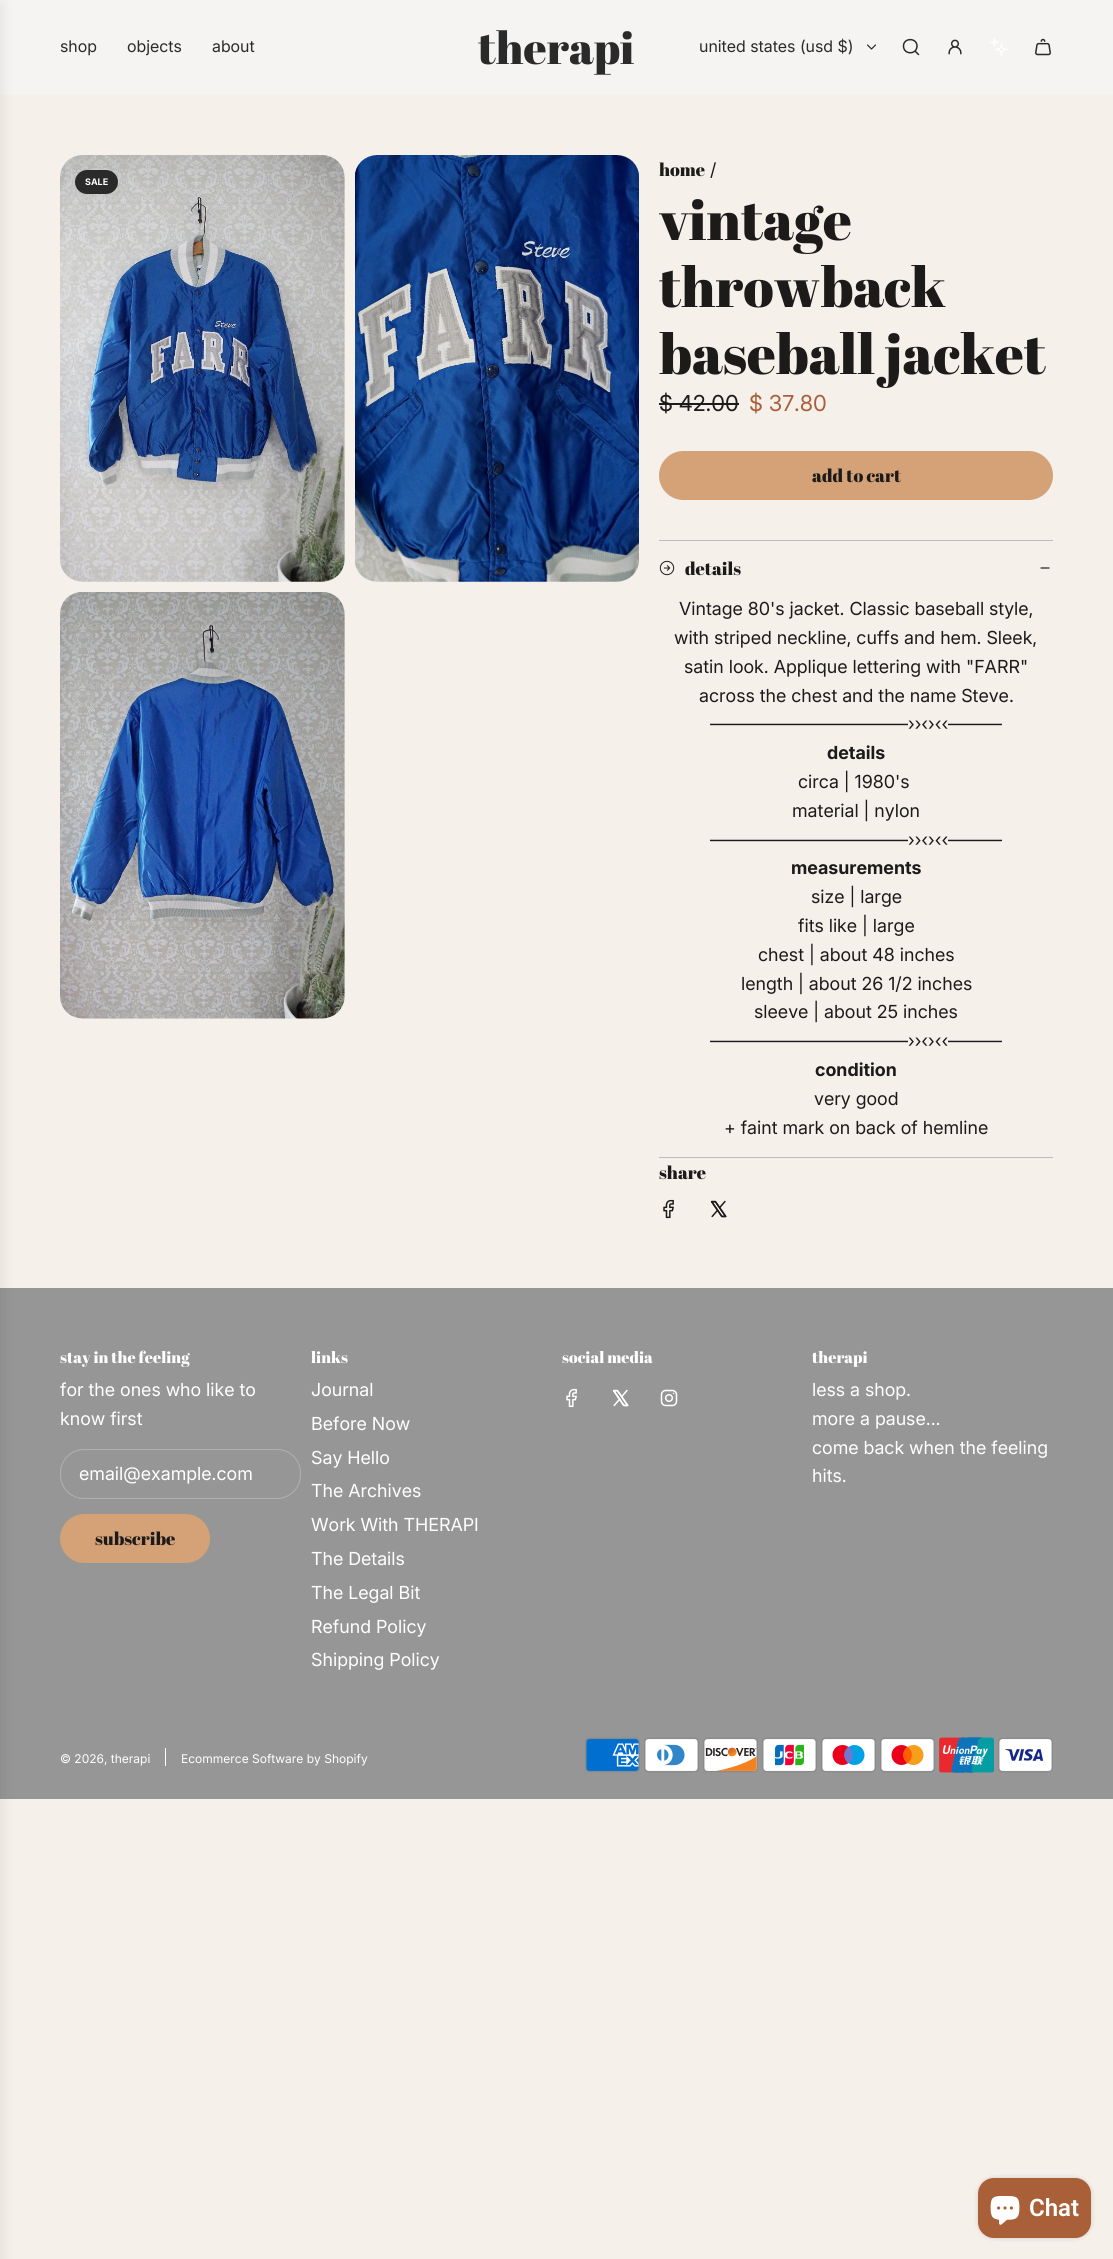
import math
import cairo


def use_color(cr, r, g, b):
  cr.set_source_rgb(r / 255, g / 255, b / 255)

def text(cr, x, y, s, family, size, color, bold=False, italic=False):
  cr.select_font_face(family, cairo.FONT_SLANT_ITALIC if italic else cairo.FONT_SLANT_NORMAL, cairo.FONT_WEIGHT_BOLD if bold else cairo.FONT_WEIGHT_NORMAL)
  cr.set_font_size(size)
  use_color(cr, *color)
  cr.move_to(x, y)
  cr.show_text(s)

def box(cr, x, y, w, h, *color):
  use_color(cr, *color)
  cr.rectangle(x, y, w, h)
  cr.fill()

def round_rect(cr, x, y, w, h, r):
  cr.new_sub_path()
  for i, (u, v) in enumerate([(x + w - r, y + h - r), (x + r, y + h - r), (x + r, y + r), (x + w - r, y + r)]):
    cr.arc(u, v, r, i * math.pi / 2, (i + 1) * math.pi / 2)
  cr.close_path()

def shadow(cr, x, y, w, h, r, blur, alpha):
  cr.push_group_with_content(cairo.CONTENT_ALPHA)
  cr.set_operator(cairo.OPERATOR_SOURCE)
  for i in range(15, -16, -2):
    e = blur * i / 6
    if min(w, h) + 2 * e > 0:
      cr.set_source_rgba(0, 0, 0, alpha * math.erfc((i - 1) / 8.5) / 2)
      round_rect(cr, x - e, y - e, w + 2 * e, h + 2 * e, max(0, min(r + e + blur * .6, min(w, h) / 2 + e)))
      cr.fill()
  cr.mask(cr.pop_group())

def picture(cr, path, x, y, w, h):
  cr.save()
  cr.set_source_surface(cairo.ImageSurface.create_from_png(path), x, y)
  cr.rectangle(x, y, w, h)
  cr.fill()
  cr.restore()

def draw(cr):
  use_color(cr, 245, 240, 234)
  cr.paint()
  box(cr, 0, 0, 1113, 95, 245, 244, 242)
  box(cr, 0, 1288, 1113, 511, 150, 150, 150)
  use_color(cr, 0, 0, 0)
  shadow(cr, -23, 5, 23, 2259, 0, 7.5, 0.1)
  cr.new_path()
  cr.move_to(867.5, 45)
  cr.line_to(871.5, 49)
  cr.line_to(875.5, 45)
  use_color(cr, 42, 42, 42)
  cr.set_line_width(1.2)
  cr.set_line_cap(cairo.LINE_CAP_ROUND)
  cr.set_line_join(cairo.LINE_JOIN_ROUND)
  cr.stroke()
  cr.new_path()
  cr.move_to(915, 51)
  cr.line_to(918.5, 54.5)
  cr.move_to(903.5, 46)
  cr.curve_to(903.5, 55, 917, 55, 917, 46)
  cr.curve_to(917, 37.5, 903.5, 37.5, 903.5, 46)
  cr.close_path()
  cr.set_line_width(1.5)
  cr.stroke()
  picture(cr, "img_01.png", 948, 39, 14, 16)
  picture(cr, "img_02.png", 990, 38, 18, 18)
  picture(cr, "img_03.png", 1035, 38, 16, 18)
  picture(cr, "img_04.png", 60, 155, 285, 427)
  picture(cr, "img_05.png", 60, 592, 285, 427)
  picture(cr, "img_06.png", 355, 155, 284, 427)
  round_rect(cr, 75, 170, 43, 24, 12)
  cr.fill()
  box(cr, 659, 403, 80, 2, 29, 27, 26)
  use_color(cr, 212, 162, 118)
  round_rect(cr, 659, 451, 394, 49, 24.5)
  cr.fill()
  box(cr, 659, 540, 394, 1, 191, 187, 182)
  box(cr, 659, 1157, 394, 1, 191, 187, 182)
  picture(cr, "img_07.png", 659, 560, 16, 16)
  cr.new_path()
  cr.move_to(1041, 568)
  cr.line_to(1049, 568)
  use_color(cr, 29, 27, 26)
  cr.set_line_width(1.2)
  cr.stroke()
  picture(cr, "img_08.png", 663, 1199, 11, 20)
  picture(cr, "img_09.png", 710, 1200, 17, 18)
  round_rect(cr, 60.5, 1449.5, 240, 49, 23.5)
  use_color(cr, 176, 176, 176)
  cr.set_line_width(1)
  cr.set_line_cap(cairo.LINE_CAP_BUTT)
  cr.set_line_join(cairo.LINE_JOIN_MITER)
  cr.stroke()
  use_color(cr, 212, 162, 118)
  round_rect(cr, 60, 1514, 150, 49, 24.5)
  cr.fill()
  picture(cr, "img_10.png", 566, 1388, 11, 20)
  picture(cr, "img_11.png", 612, 1389, 17, 18)
  picture(cr, "img_12.png", 660, 1389, 18, 18)
  box(cr, 165, 1748, 1, 18, 255, 255, 255)
  picture(cr, "img_13.png", 585, 1737, 55, 36)
  picture(cr, "img_14.png", 644, 1737, 55, 36)
  picture(cr, "img_15.png", 703, 1737, 55, 36)
  picture(cr, "img_16.png", 762, 1737, 55, 36)
  picture(cr, "img_17.png", 821, 1737, 55, 36)
  picture(cr, "img_18.png", 880, 1737, 55, 36)
  picture(cr, "img_19.png", 939, 1737, 55, 36)
  picture(cr, "img_20.png", 998, 1737, 55, 36)
  use_color(cr, 0, 0, 0)
  shadow(cr, 978, 2178, 113, 60, 16, 2.5, 0.15)
  use_color(cr, 169, 95, 56)
  round_rect(cr, 978, 2178, 113, 60, 16)
  cr.fill()
  picture(cr, "img_21.png", 990, 2196, 30, 29)
  text(cr, 60, 52, "shop", "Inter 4", 16, (42, 42, 42))
  text(cr, 127, 52, "objects", "Inter 4", 16, (42, 42, 42))
  text(cr, 212, 52, "about", "Inter 4", 16, (42, 42, 42))
  text(cr, 478, 64, "therapi", "Abril Fatface", 45, (42, 42, 42))
  text(cr, 699, 52, "united states (usd $)", "Inter 4", 16, (42, 42, 42))
  text(cr, 85, 185, "SALE", "Inter", 9, (255, 255, 255), bold=True)
  text(cr, 659, 176, "home", "Abril Fatface", 18, (29, 27, 26))
  text(cr, 710, 176, "/", "Inter", 18, (29, 27, 26))
  text(cr, 659, 240, "vintage", "Abril Fatface", 56, (29, 27, 26))
  text(cr, 659, 307, "throwback", "Abril Fatface", 56, (29, 27, 26))
  text(cr, 659, 374, "baseball jacket", "Abril Fatface", 56, (29, 27, 26))
  text(cr, 659, 411, "$ 42.00", "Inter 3", 22, (29, 27, 26))
  text(cr, 749, 411, "$ 37.80", "Inter 3", 22, (169, 95, 56))
  text(cr, 812, 482, "add to cart", "Abril Fatface", 18, (29, 27, 26))
  text(cr, 685, 575, "details", "Abril Fatface", 18, (29, 27, 26))
  text(cr, 679, 615, "Vintage 80's jacket. Classic baseball style,", "Inter", 18, (29, 27, 26))
  text(cr, 674, 644, "with striped neckline, cuffs and hem. Sleek,", "Inter", 18, (29, 27, 26))
  text(cr, 684, 673, "satin look. Applique lettering with \"FARR\"", "Inter", 18, (29, 27, 26))
  text(cr, 699, 702, "across the chest and the name Steve.", "Inter", 18, (29, 27, 26))
  text(cr, 710, 730, "———————————››‹›‹‹———", "Inter", 18, (29, 27, 26))
  text(cr, 827, 759, "details", "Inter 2", 18, (29, 27, 26), bold=True)
  text(cr, 798, 788, "circa | 1980's", "Inter", 18, (29, 27, 26))
  text(cr, 792, 817, "material | nylon", "Inter", 18, (29, 27, 26))
  text(cr, 710, 846, "———————————››‹›‹‹———", "Inter", 18, (29, 27, 26))
  text(cr, 791, 874, "measurements", "Inter 2", 18, (29, 27, 26), bold=True)
  text(cr, 811, 903, "size | large", "Inter", 18, (29, 27, 26))
  text(cr, 798, 932, "fits like | large", "Inter", 18, (29, 27, 26))
  text(cr, 758, 961, "chest | about 48 inches", "Inter", 18, (29, 27, 26))
  text(cr, 741, 990, "length | about 26 1/2 inches", "Inter", 18, (29, 27, 26))
  text(cr, 754, 1018, "sleeve | about 25 inches", "Inter", 18, (29, 27, 26))
  text(cr, 710, 1047, "———————————››‹›‹‹———", "Inter", 18, (29, 27, 26))
  text(cr, 815, 1076, "condition", "Inter 2", 18, (29, 27, 26), bold=True)
  text(cr, 814, 1105, "very good", "Inter", 18, (29, 27, 26))
  text(cr, 724, 1134, "+ faint mark on back of hemline", "Inter", 18, (29, 27, 26))
  text(cr, 659, 1179, "share", "Abril Fatface", 18, (29, 27, 26))
  text(cr, 60, 1363, "stay in the feeling", "Abril Fatface", 16, (255, 255, 255))
  text(cr, 60, 1396, "for the ones who like to", "Inter", 18, (255, 255, 255))
  text(cr, 60, 1425, "know first", "Inter", 18, (255, 255, 255))
  text(cr, 79, 1480, "email@example.com", "Inter", 18, (255, 255, 255))
  text(cr, 95, 1545, "subscribe", "Abril Fatface", 18, (29, 27, 26))
  text(cr, 311, 1363, "links", "Abril Fatface", 16, (255, 255, 255))
  text(cr, 311, 1396, "Journal", "Inter", 18, (255, 255, 255))
  text(cr, 311, 1430, "Before Now", "Inter", 18, (255, 255, 255))
  text(cr, 311, 1464, "Say Hello", "Inter", 18, (255, 255, 255))
  text(cr, 311, 1497, "The Archives", "Inter", 18, (255, 255, 255))
  text(cr, 311, 1531, "Work With THERAPI", "Inter", 18, (255, 255, 255))
  text(cr, 311, 1565, "The Details", "Inter", 18, (255, 255, 255))
  text(cr, 311, 1599, "The Legal Bit", "Inter", 18, (255, 255, 255))
  text(cr, 311, 1633, "Refund Policy", "Inter", 18, (255, 255, 255))
  text(cr, 311, 1666, "Shipping Policy", "Inter", 18, (255, 255, 255))
  text(cr, 562, 1363, "social media", "Abril Fatface", 16, (255, 255, 255))
  text(cr, 812, 1363, "therapi", "Abril Fatface", 16, (255, 255, 255))
  text(cr, 812, 1396, "less a shop.", "Inter", 18, (255, 255, 255))
  text(cr, 812, 1425, "more a pause...", "Inter", 18, (255, 255, 255))
  text(cr, 812, 1454, "come back when the feeling", "Inter", 18, (255, 255, 255))
  text(cr, 812, 1482, "hits.", "Inter", 18, (255, 255, 255))
  text(cr, 60, 1763, "© 2026, therapi", "Inter 2", 12, (255, 255, 255))
  text(cr, 181, 1763, "Ecommerce Software by Shopify", "Inter 2", 12, (255, 255, 255))
  text(cr, 1029, 2216, "Chat", "Roboto SemiBold", 24, (255, 255, 255))


surface = cairo.ImageSurface(cairo.FORMAT_RGB24, 1113, 2259)
cr = cairo.Context(surface)
options = cairo.FontOptions()
options.set_hint_metrics(cairo.HINT_METRICS_OFF)
options.set_hint_style(cairo.HINT_STYLE_NONE)
cr.set_font_options(options)
cr.set_miter_limit(4)
draw(cr)
surface.write_to_png("out.png")
